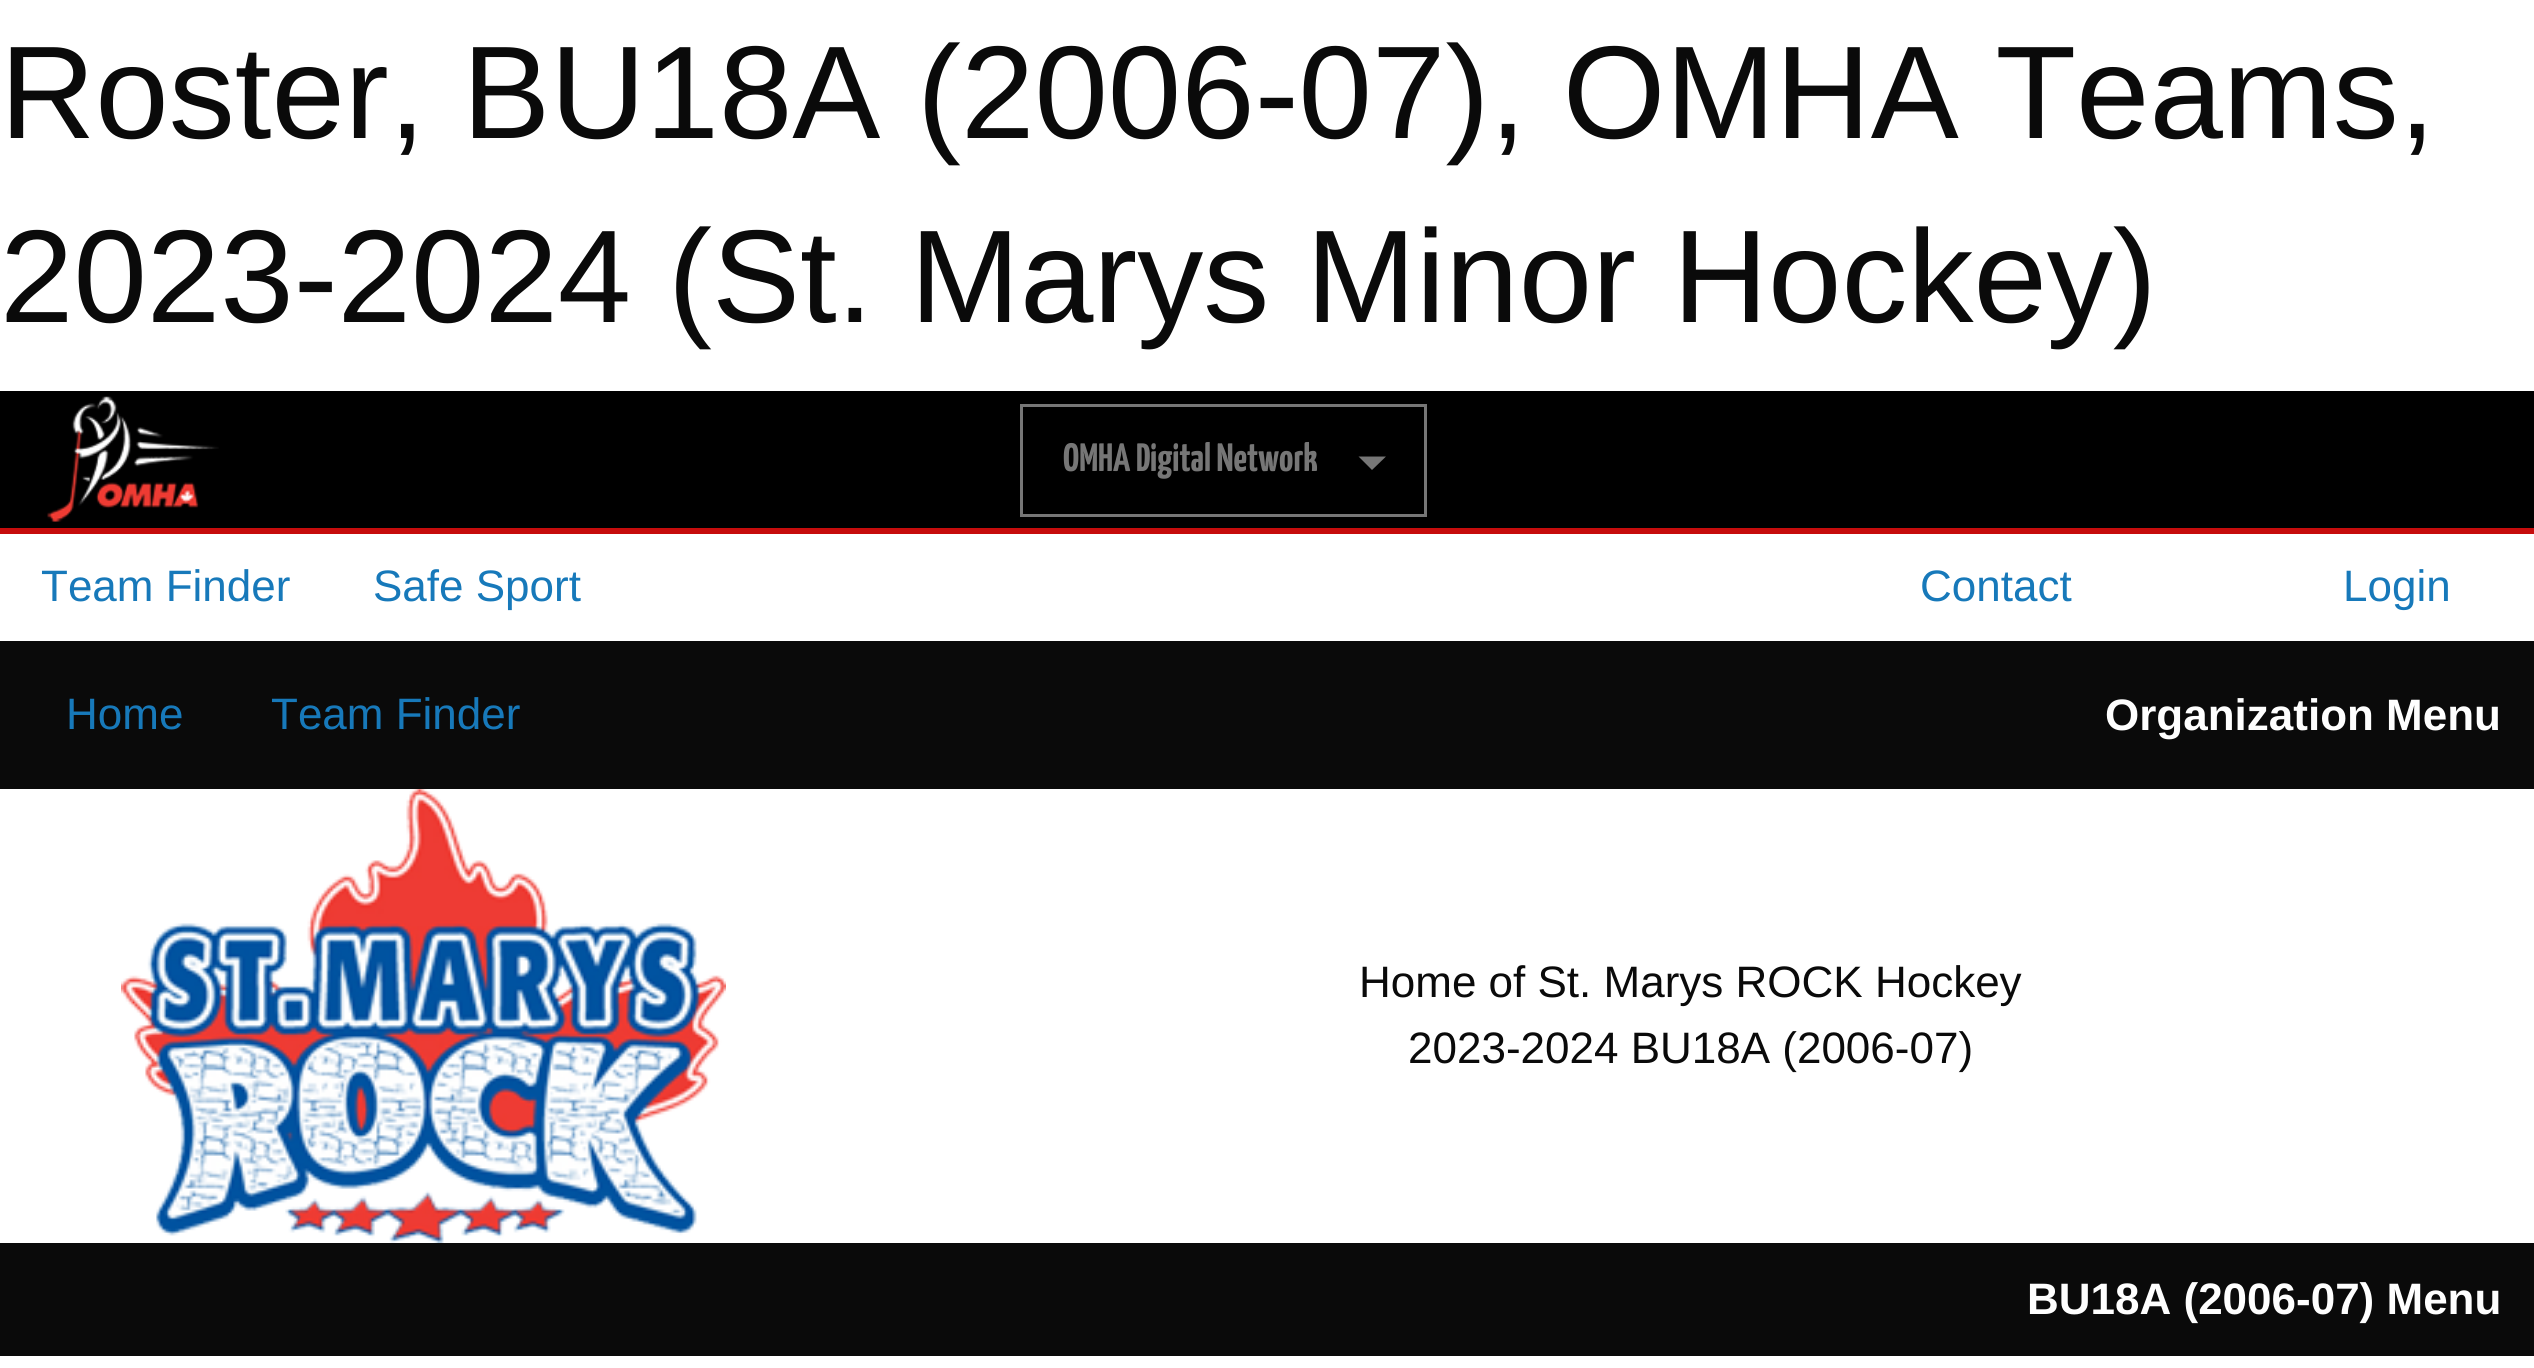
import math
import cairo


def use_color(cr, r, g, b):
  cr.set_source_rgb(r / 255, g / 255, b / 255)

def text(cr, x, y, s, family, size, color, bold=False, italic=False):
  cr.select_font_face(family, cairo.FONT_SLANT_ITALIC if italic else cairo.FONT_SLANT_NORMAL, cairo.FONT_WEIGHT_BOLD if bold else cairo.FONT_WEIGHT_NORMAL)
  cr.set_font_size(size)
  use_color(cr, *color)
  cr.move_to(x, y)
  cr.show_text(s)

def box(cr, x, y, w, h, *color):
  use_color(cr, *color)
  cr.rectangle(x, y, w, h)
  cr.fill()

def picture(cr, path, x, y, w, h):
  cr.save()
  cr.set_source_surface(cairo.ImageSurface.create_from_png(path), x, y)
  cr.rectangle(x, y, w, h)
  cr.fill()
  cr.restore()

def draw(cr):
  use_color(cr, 255, 255, 255)
  cr.paint()
  box(cr, 0, 391, 2534, 137, 0, 0, 0)
  box(cr, 0, 528, 2534, 6, 198, 12, 12)
  picture(cr, "img_01.png", 47, 396, 172, 126)
  cr.rectangle(1021.5, 405.5, 404, 110)
  use_color(cr, 118, 118, 118)
  cr.set_line_width(3)
  cr.stroke()
  cr.new_path()
  cr.move_to(1358.5, 456.5)
  cr.line_to(1386, 456.5)
  cr.line_to(1372, 470)
  cr.close_path()
  cr.fill()
  box(cr, 0, 641, 2534, 148, 10, 10, 10)
  picture(cr, "img_02.png", 121, 789, 605, 454)
  box(cr, 0, 1243, 2534, 113, 10, 10, 10)
  text(cr, 0, 138, "Roster, BU18A (2006-07), OMHA Teams,", "Liberation Sans", 132, (10, 10, 10))
  text(cr, 0, 322, "2023-2024 (St. Marys Minor Hockey)", "Liberation Sans", 132, (10, 10, 10))
  text(cr, 1063, 471, "OMHA Digital Network", "Yanone Kaffeesatz ExtraLight", 39.5, (118, 118, 118))
  text(cr, 41, 601, "Team Finder", "Liberation Sans", 44, (23, 121, 186))
  text(cr, 373, 601, "Safe Sport", "Liberation Sans", 44, (23, 121, 186))
  text(cr, 1920, 601, "Contact", "Liberation Sans", 44, (23, 121, 186))
  text(cr, 2343, 601, "Login", "Liberation Sans", 44, (23, 121, 186))
  text(cr, 66, 729, "Home", "Liberation Sans", 44, (23, 121, 186))
  text(cr, 271, 729, "Team Finder", "Liberation Sans", 44, (23, 121, 186))
  text(cr, 2105, 730, "Organization Menu", "Liberation Sans", 44, (254, 254, 254), bold=True)
  text(cr, 1359, 997, "Home of St. Marys ROCK Hockey", "Liberation Sans", 44, (10, 10, 10))
  text(cr, 1408, 1063, "2023-2024 BU18A (2006-07)", "Liberation Sans", 44, (10, 10, 10))
  text(cr, 2027, 1314, "BU18A (2006-07) Menu", "Liberation Sans", 44, (254, 254, 254), bold=True)


surface = cairo.ImageSurface(cairo.FORMAT_RGB24, 2534, 1368)
cr = cairo.Context(surface)
options = cairo.FontOptions()
options.set_hint_metrics(cairo.HINT_METRICS_OFF)
options.set_hint_style(cairo.HINT_STYLE_NONE)
cr.set_font_options(options)
cr.set_miter_limit(4)
draw(cr)
surface.write_to_png("out.png")
